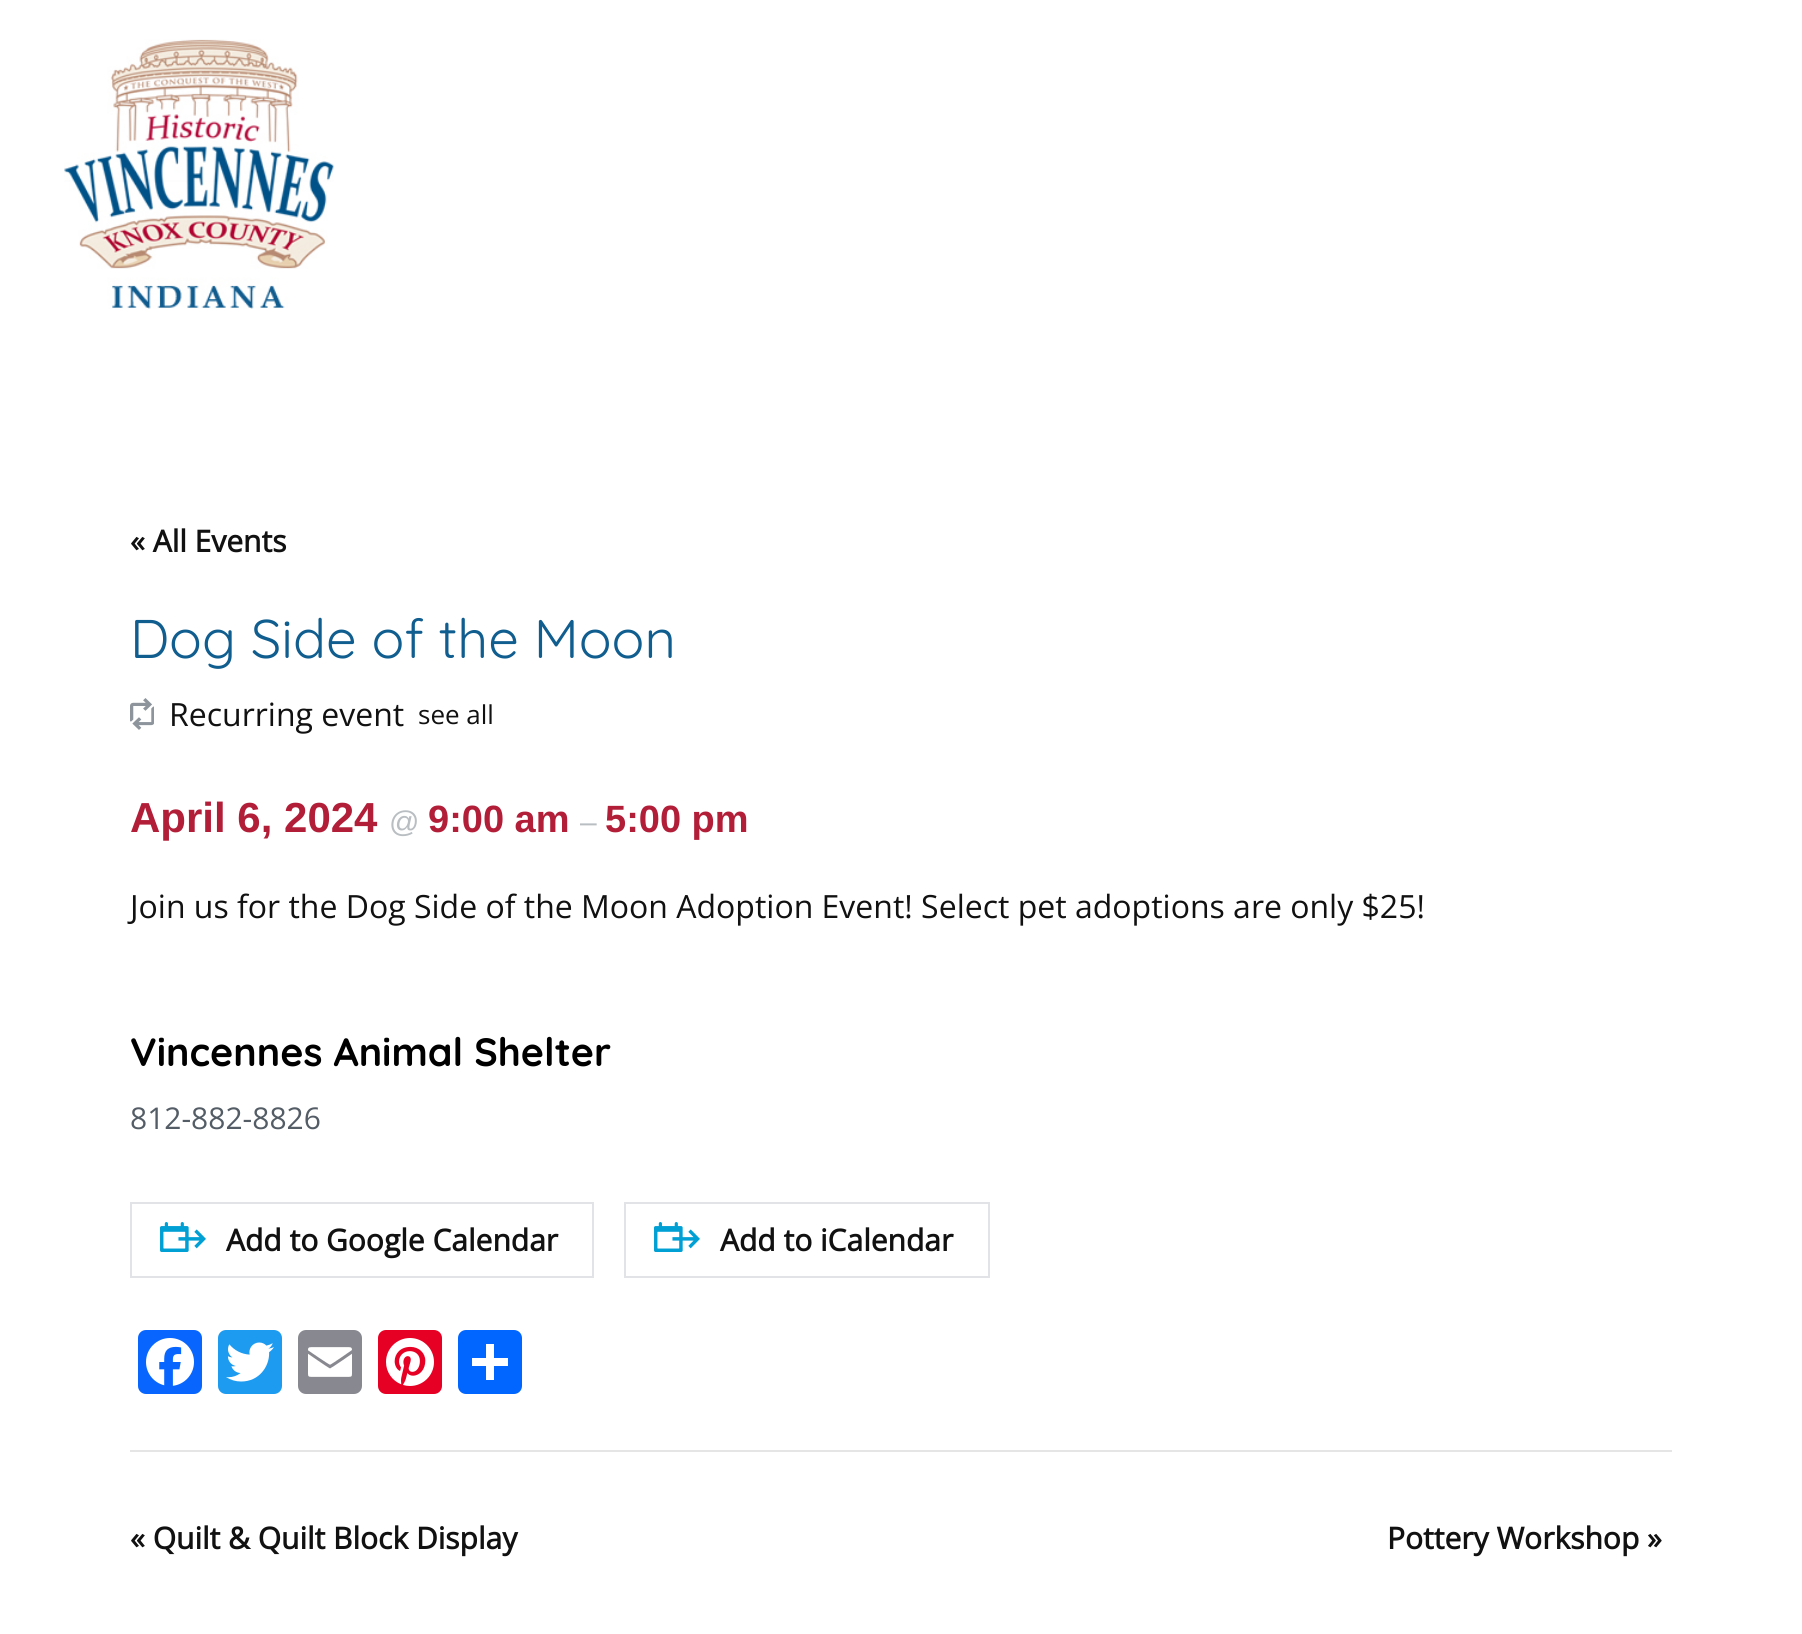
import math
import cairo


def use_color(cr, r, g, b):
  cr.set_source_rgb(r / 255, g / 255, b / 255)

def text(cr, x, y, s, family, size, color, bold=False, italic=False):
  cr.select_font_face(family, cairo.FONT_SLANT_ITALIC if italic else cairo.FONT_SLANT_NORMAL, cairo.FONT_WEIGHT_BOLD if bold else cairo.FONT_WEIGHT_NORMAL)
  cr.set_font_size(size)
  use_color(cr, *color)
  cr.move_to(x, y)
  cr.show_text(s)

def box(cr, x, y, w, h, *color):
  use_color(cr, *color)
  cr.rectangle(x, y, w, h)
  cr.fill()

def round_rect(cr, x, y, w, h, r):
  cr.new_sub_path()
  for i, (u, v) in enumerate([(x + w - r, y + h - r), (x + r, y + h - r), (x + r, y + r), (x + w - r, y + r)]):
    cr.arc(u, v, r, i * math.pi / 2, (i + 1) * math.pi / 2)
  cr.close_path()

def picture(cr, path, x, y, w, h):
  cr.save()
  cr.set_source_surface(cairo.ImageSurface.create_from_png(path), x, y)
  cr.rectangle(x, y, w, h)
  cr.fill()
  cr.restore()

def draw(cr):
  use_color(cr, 255, 255, 255)
  cr.paint()
  picture(cr, "img_01.png", 64, 39, 270, 270)
  picture(cr, "img_02.png", 130, 698, 24, 32)
  cr.rectangle(131, 1203, 462, 74)
  use_color(cr, 225, 227, 230)
  cr.stroke()
  picture(cr, "img_03.png", 160, 1222, 46, 30)
  cr.rectangle(625, 1203, 364, 74)
  cr.stroke()
  picture(cr, "img_03.png", 654, 1222, 46, 30)
  use_color(cr, 8, 102, 255)
  round_rect(cr, 138, 1330, 64, 64, 8)
  cr.fill()
  picture(cr, "img_04.png", 146, 1338, 48, 48)
  use_color(cr, 29, 155, 240)
  round_rect(cr, 218, 1330, 64, 64, 8)
  cr.fill()
  picture(cr, "img_05.png", 226, 1342, 48, 40)
  use_color(cr, 136, 137, 144)
  round_rect(cr, 298, 1330, 64, 64, 8)
  cr.fill()
  picture(cr, "img_06.png", 308, 1347, 44, 30)
  use_color(cr, 230, 0, 35)
  round_rect(cr, 378, 1330, 64, 64, 8)
  cr.fill()
  picture(cr, "img_07.png", 386, 1338, 48, 48)
  use_color(cr, 1, 102, 255)
  round_rect(cr, 458, 1330, 64, 64, 8)
  cr.fill()
  box(cr, 486, 1344, 8, 36, 255, 255, 255)
  box(cr, 472, 1358, 36, 8, 255, 255, 255)
  box(cr, 130, 1450, 1542, 2, 229, 229, 229)
  text(cr, 130, 552, "« All Events", "Open Sans", 30, (17, 17, 17), bold=True)
  text(cr, 130, 658, "Dog Side of the Moon", "Quicksand Light", 54.4, (16, 93, 143))
  text(cr, 169, 726, "Recurring event", "Open Sans", 32, (17, 17, 17))
  text(cr, 418, 724, "see all", "Open Sans", 26, (17, 17, 17))
  text(cr, 130, 832, "April 6, 2024", "Liberation Sans", 42, (178, 29, 56), bold=True)
  text(cr, 389, 832, "@", "Liberation Sans", 30, (185, 190, 194))
  text(cr, 428, 832, "9:00 am", "Liberation Sans", 38, (178, 29, 56), bold=True)
  text(cr, 580, 832, "–", "Liberation Sans", 30, (185, 190, 194))
  text(cr, 605, 832, "5:00 pm", "Liberation Sans", 38, (178, 29, 56), bold=True)
  text(cr, 130, 918, "Join us for the Dog Side of the Moon Adoption Event! Select pet adoptions are only $25!", "Open Sans", 32, (17, 17, 17))
  text(cr, 130, 1066, "Vincennes Animal Shelter", "Quicksand", 39.4, (0, 0, 0), bold=True)
  text(cr, 130, 1129, "812-882-8826", "Open Sans", 30, (84, 93, 102))
  text(cr, 226, 1251, "Add to Google Calendar", "Open Sans", 30, (17, 17, 17), bold=True)
  text(cr, 720, 1251, "Add to iCalendar", "Open Sans", 30, (17, 17, 17), bold=True)
  text(cr, 130, 1549, "« Quilt & Quilt Block Display", "Open Sans", 30, (17, 17, 17), bold=True)
  text(cr, 1387, 1549, "Pottery Workshop »", "Open Sans", 30, (17, 17, 17), bold=True)


surface = cairo.ImageSurface(cairo.FORMAT_RGB24, 1802, 1634)
cr = cairo.Context(surface)
options = cairo.FontOptions()
options.set_hint_metrics(cairo.HINT_METRICS_OFF)
options.set_hint_style(cairo.HINT_STYLE_NONE)
cr.set_font_options(options)
cr.set_miter_limit(4)
draw(cr)
surface.write_to_png("out.png")
